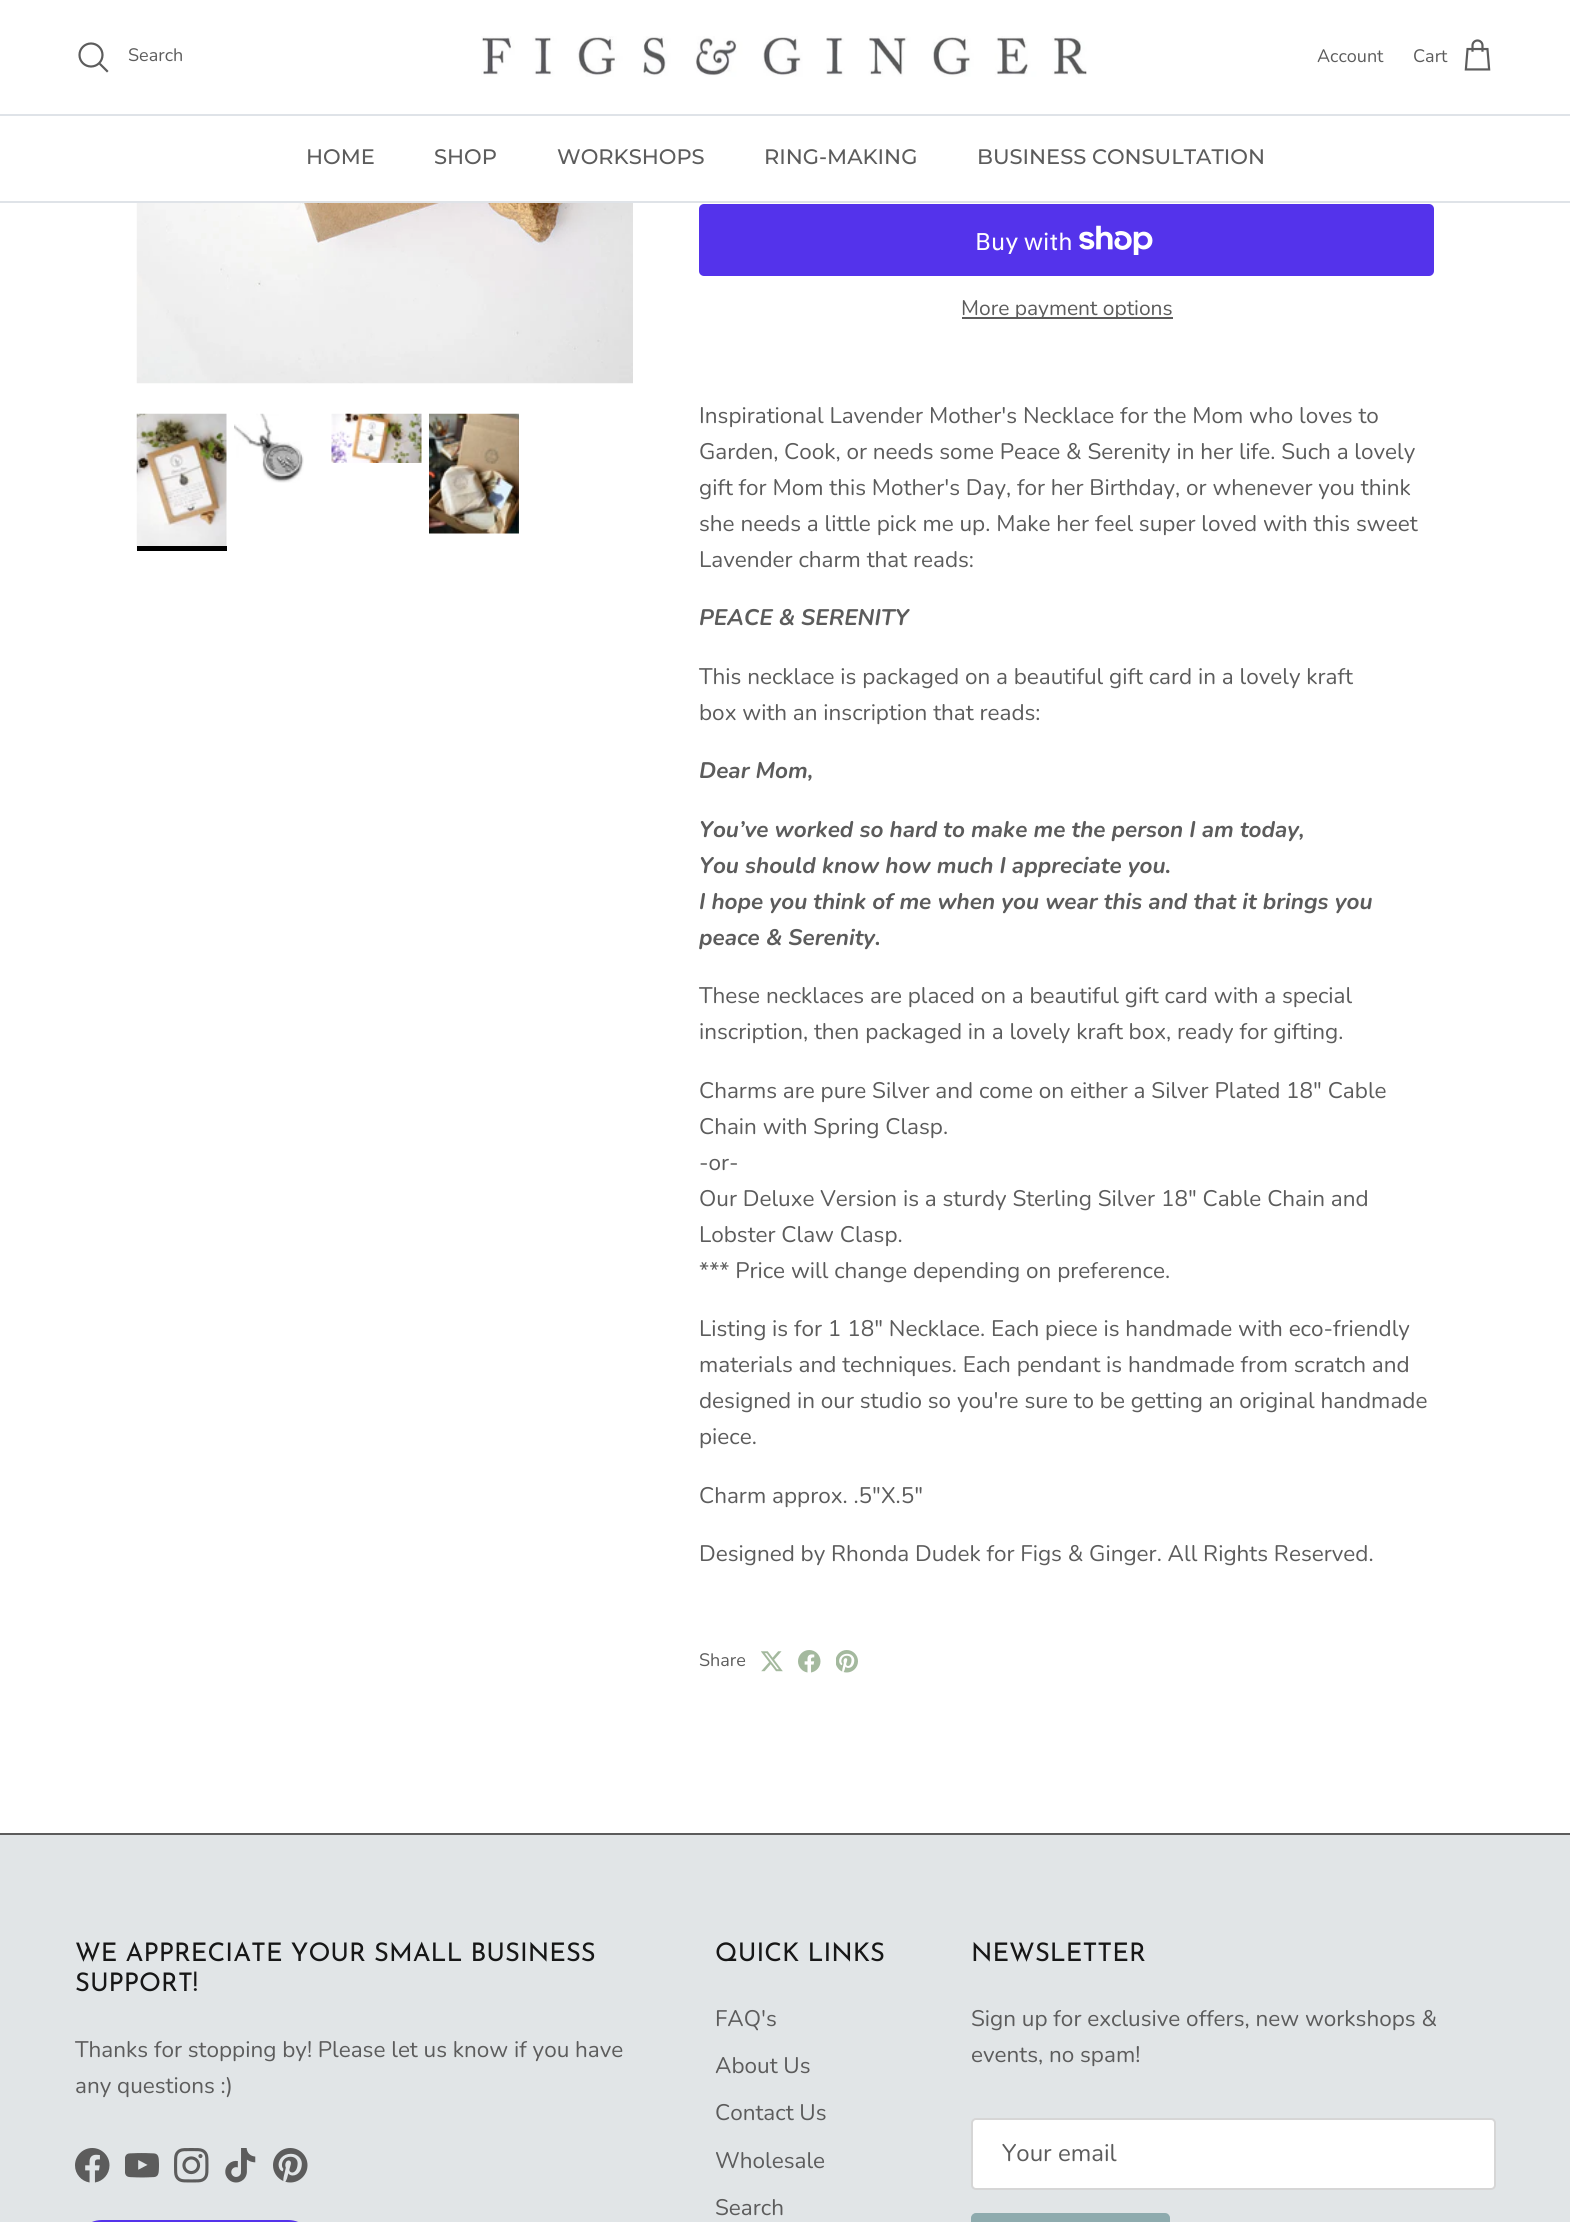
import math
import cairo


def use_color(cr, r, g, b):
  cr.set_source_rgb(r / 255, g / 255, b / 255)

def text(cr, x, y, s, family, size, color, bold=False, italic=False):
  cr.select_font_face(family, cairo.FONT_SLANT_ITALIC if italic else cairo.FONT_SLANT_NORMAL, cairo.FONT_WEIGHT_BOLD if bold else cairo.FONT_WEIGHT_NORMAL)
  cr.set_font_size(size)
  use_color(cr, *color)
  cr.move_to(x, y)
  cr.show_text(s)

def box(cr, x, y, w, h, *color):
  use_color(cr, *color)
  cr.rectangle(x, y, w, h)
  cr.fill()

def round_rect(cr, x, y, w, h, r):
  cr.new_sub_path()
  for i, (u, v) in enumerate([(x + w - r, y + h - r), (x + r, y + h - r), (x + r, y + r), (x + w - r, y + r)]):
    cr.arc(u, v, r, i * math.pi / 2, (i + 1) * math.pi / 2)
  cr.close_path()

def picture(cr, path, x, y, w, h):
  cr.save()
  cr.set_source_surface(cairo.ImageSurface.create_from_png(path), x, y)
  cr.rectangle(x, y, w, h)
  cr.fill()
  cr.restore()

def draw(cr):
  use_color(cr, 255, 255, 255)
  cr.paint()
  box(cr, 0, 114, 1570, 2, 223, 227, 232)
  cr.arc(91, 55, 11.5, 0, 2 * math.pi)
  use_color(cr, 92, 92, 92)
  cr.set_line_width(2.2)
  cr.stroke()
  cr.new_path()
  cr.move_to(100.5, 64.5)
  cr.line_to(107, 71)
  cr.set_line_cap(cairo.LINE_CAP_SQUARE)
  cr.stroke()
  picture(cr, "img_01.png", 481, 36, 606, 41)
  picture(cr, "img_02.png", 1464, 39, 27, 32)
  box(cr, 0, 201, 1570, 2, 223, 227, 232)
  picture(cr, "img_03.png", 136, 203, 497, 181)
  picture(cr, "img_04.png", 136, 413, 91, 137)
  box(cr, 137, 546, 90, 5, 0, 0, 0)
  picture(cr, "img_05.png", 234, 413, 70, 70)
  picture(cr, "img_06.png", 331, 413, 91, 50)
  picture(cr, "img_07.png", 429, 413, 90, 121)
  use_color(cr, 84, 51, 235)
  round_rect(cr, 699, 204, 735, 72, 5)
  cr.fill()
  picture(cr, "img_08.png", 1079, 225, 74, 30)
  box(cr, 962, 317, 211, 2, 92, 92, 92)
  picture(cr, "img_09.png", 761, 1651, 22, 21)
  picture(cr, "img_10.png", 798, 1650, 23, 23)
  picture(cr, "img_11.png", 836, 1650, 22, 23)
  box(cr, 0, 1835, 1570, 387, 225, 229, 231)
  box(cr, 0, 1833, 1570, 2, 92, 92, 92)
  picture(cr, "img_12.png", 75, 2148, 35, 35)
  picture(cr, "img_13.png", 125, 2153, 34, 25)
  picture(cr, "img_14.png", 174, 2148, 35, 35)
  picture(cr, "img_15.png", 225, 2148, 31, 35)
  picture(cr, "img_16.png", 273, 2148, 35, 35)
  use_color(cr, 84, 51, 235)
  round_rect(cr, 75, 2220, 240, 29, 27)
  cr.fill()
  use_color(cr, 255, 255, 255)
  round_rect(cr, 972, 2119, 523, 70, 4)
  cr.fill_preserve()
  use_color(cr, 214, 214, 214)
  cr.set_line_width(2)
  cr.set_line_cap(cairo.LINE_CAP_BUTT)
  cr.stroke()
  use_color(cr, 142, 171, 174)
  round_rect(cr, 972, 2214, 197, 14, 4)
  cr.fill_preserve()
  cr.stroke()
  text(cr, 128, 61, "Search", "Nunito", 18, (92, 92, 92))
  text(cr, 1317, 62, "Account", "Nunito", 18, (92, 92, 92))
  text(cr, 1413, 62, "Cart", "Nunito", 18, (92, 92, 92))
  text(cr, 306, 164, "HOME", "Montserrat Medium", 21, (92, 92, 92))
  text(cr, 434, 164, "SHOP", "Montserrat Medium", 21, (92, 92, 92))
  text(cr, 557, 164, "WORKSHOPS", "Montserrat Medium", 21, (92, 92, 92))
  text(cr, 764, 164, "RING-MAKING", "Montserrat Medium", 21, (92, 92, 92))
  text(cr, 977, 164, "BUSINESS CONSULTATION", "Montserrat Medium", 21, (92, 92, 92))
  text(cr, 975, 250, "Buy with", "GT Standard", 24, (255, 255, 255))
  text(cr, 961, 315, "More payment options", "Nunito", 21, (92, 92, 92))
  text(cr, 699, 423, "Inspirational Lavender Mother's Necklace for the Mom who loves to", "Nunito", 22.5, (92, 92, 92))
  text(cr, 699, 459, "Garden, Cook, or needs some Peace & Serenity in her life. Such a lovely", "Nunito", 22.5, (92, 92, 92))
  text(cr, 699, 495, "gift for Mom this Mother's Day, for her Birthday, or whenever you think", "Nunito", 22.5, (92, 92, 92))
  text(cr, 699, 531, "she needs a little pick me up. Make her feel super loved with this sweet", "Nunito", 22.5, (92, 92, 92))
  text(cr, 699, 567, "Lavender charm that reads:", "Nunito", 22.5, (92, 92, 92))
  text(cr, 699, 625, "PEACE & SERENITY", "Nunito", 22.5, (92, 92, 92), bold=True, italic=True)
  text(cr, 699, 684, "This necklace is packaged on a beautiful gift card in a lovely kraft", "Nunito", 22.5, (92, 92, 92))
  text(cr, 699, 720, "box with an inscription that reads:", "Nunito", 22.5, (92, 92, 92))
  text(cr, 699, 778, "Dear Mom,", "Nunito", 22.5, (92, 92, 92), bold=True, italic=True)
  text(cr, 699, 837, "You’ve worked so hard to make me the person I am today,", "Nunito", 22.5, (92, 92, 92), bold=True, italic=True)
  text(cr, 699, 873, "You should know how much I appreciate you.", "Nunito", 22.5, (92, 92, 92), bold=True, italic=True)
  text(cr, 699, 909, "I hope you think of me when you wear this and that it brings you", "Nunito", 22.5, (92, 92, 92), bold=True, italic=True)
  text(cr, 699, 945, "peace & Serenity.", "Nunito", 22.5, (92, 92, 92), bold=True, italic=True)
  text(cr, 699, 1003, "These necklaces are placed on a beautiful gift card with a special", "Nunito", 22.5, (92, 92, 92))
  text(cr, 699, 1039, "inscription, then packaged in a lovely kraft box, ready for gifting.", "Nunito", 22.5, (92, 92, 92))
  text(cr, 699, 1098, "Charms are pure Silver and come on either a Silver Plated 18\" Cable", "Nunito", 22.5, (92, 92, 92))
  text(cr, 699, 1134, "Chain with Spring Clasp.", "Nunito", 22.5, (92, 92, 92))
  text(cr, 699, 1170, "-or-", "Nunito", 22.5, (92, 92, 92))
  text(cr, 699, 1206, "Our Deluxe Version is a sturdy Sterling Silver 18\" Cable Chain and", "Nunito", 22.5, (92, 92, 92))
  text(cr, 699, 1242, "Lobster Claw Clasp.", "Nunito", 22.5, (92, 92, 92))
  text(cr, 699, 1278, "*** Price will change depending on preference.", "Nunito", 22.5, (92, 92, 92))
  text(cr, 699, 1336, "Listing is for 1 18\" Necklace. Each piece is handmade with eco-friendly", "Nunito", 22.5, (92, 92, 92))
  text(cr, 699, 1372, "materials and techniques. Each pendant is handmade from scratch and", "Nunito", 22.5, (92, 92, 92))
  text(cr, 699, 1408, "designed in our studio so you're sure to be getting an original handmade", "Nunito", 22.5, (92, 92, 92))
  text(cr, 699, 1444, "piece.", "Nunito", 22.5, (92, 92, 92))
  text(cr, 699, 1503, "Charm approx. .5\"X.5\"", "Nunito", 22.5, (92, 92, 92))
  text(cr, 699, 1561, "Designed by Rhonda Dudek for Figs & Ginger. All Rights Reserved.", "Nunito", 22.5, (92, 92, 92))
  text(cr, 699, 1666, "Share", "Nunito", 18, (92, 92, 92))
  text(cr, 75, 1961, "WE APPRECIATE YOUR SMALL BUSINESS", "Josefin Sans", 25.6, (23, 23, 23))
  text(cr, 75, 1991, "SUPPORT!", "Josefin Sans", 25.6, (23, 23, 23))
  text(cr, 75, 2057, "Thanks for stopping by! Please let us know if you have", "Nunito", 22.5, (92, 92, 92))
  text(cr, 75, 2093, "any questions :)", "Nunito", 22.5, (92, 92, 92))
  text(cr, 715, 1961, "QUICK LINKS", "Josefin Sans", 25.6, (23, 23, 23))
  text(cr, 715, 2026, "FAQ's", "Nunito", 22.5, (92, 92, 92))
  text(cr, 715, 2073, "About Us", "Nunito", 22.5, (92, 92, 92))
  text(cr, 715, 2120, "Contact Us", "Nunito", 22.5, (92, 92, 92))
  text(cr, 715, 2168, "Wholesale", "Nunito", 22.5, (92, 92, 92))
  text(cr, 715, 2215, "Search", "Nunito", 22.5, (92, 92, 92))
  text(cr, 971, 1961, "NEWSLETTER", "Josefin Sans", 25.6, (23, 23, 23))
  text(cr, 971, 2026, "Sign up for exclusive offers, new workshops &", "Nunito", 22.5, (92, 92, 92))
  text(cr, 971, 2062, "events, no spam!", "Nunito", 22.5, (92, 92, 92))
  text(cr, 1002, 2161, "Your email", "Nunito", 24, (92, 92, 92))


surface = cairo.ImageSurface(cairo.FORMAT_RGB24, 1570, 2222)
cr = cairo.Context(surface)
options = cairo.FontOptions()
options.set_hint_metrics(cairo.HINT_METRICS_OFF)
options.set_hint_style(cairo.HINT_STYLE_NONE)
cr.set_font_options(options)
cr.set_miter_limit(4)
draw(cr)
surface.write_to_png("out.png")
